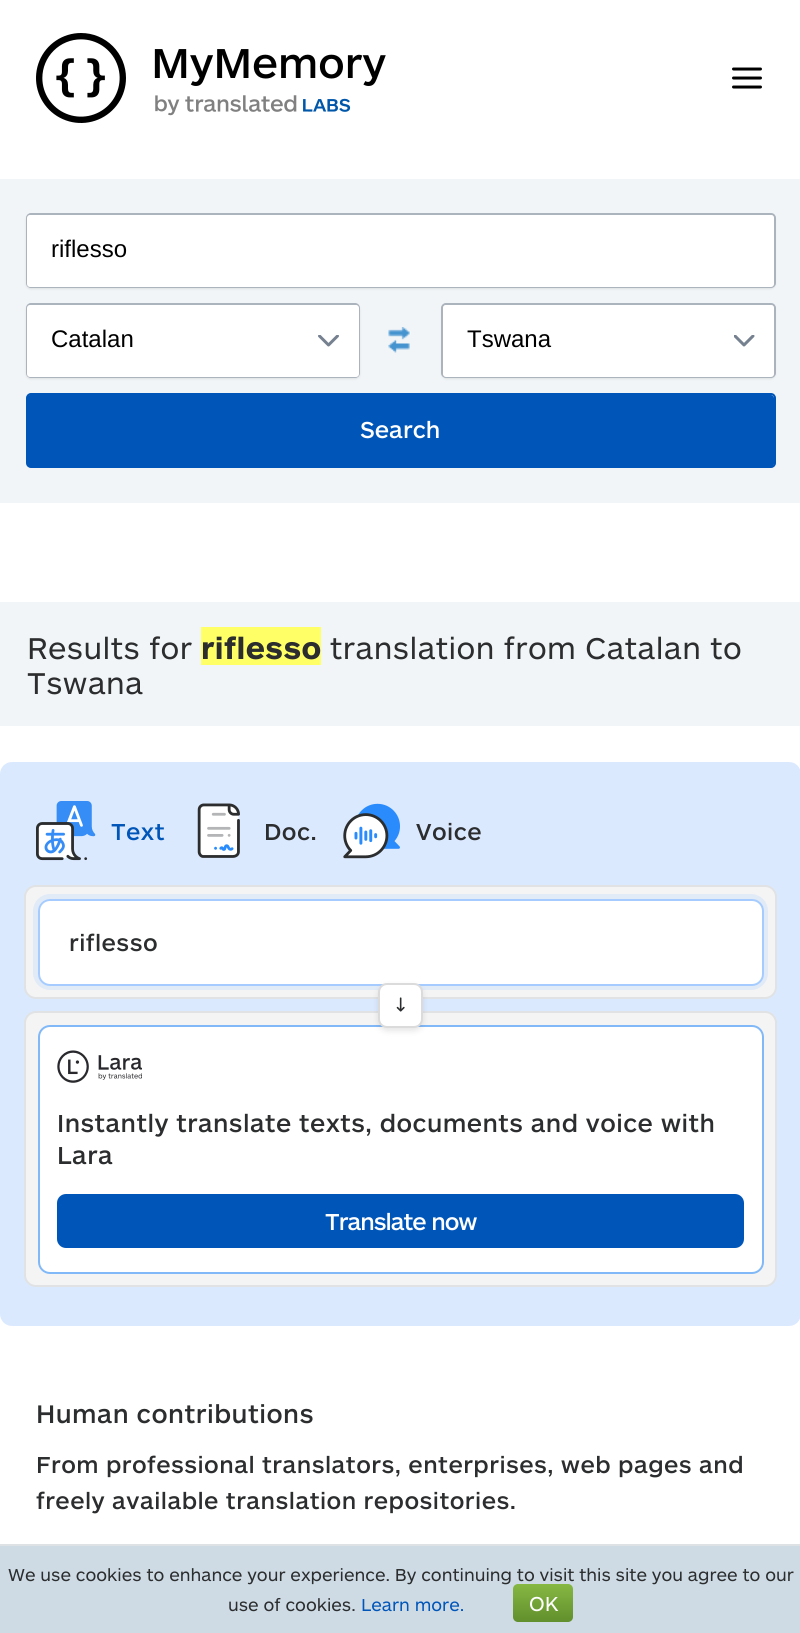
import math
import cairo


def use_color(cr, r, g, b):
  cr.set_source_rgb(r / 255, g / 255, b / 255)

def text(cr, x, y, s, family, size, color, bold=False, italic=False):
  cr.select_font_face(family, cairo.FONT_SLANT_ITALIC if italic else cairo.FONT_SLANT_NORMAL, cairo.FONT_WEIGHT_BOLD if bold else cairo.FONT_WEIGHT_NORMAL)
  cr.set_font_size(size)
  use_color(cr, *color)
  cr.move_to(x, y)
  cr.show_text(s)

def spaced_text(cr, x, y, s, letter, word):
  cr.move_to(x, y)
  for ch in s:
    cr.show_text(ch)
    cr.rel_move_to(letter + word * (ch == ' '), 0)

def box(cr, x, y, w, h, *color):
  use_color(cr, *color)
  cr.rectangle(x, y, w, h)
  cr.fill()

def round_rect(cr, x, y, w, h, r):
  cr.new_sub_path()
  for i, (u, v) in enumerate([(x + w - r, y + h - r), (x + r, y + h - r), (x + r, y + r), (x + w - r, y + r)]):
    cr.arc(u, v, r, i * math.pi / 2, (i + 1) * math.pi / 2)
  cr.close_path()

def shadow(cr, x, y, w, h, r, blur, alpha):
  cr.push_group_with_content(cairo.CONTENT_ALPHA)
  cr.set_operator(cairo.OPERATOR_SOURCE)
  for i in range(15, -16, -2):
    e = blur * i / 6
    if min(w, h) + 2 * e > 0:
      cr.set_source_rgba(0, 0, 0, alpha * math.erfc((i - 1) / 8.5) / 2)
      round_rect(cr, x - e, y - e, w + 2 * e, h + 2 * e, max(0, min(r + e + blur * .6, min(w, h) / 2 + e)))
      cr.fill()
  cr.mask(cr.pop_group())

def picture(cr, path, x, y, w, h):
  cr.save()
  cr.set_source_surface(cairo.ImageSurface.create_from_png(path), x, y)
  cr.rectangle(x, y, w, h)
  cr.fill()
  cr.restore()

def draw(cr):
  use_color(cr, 255, 255, 255)
  cr.paint()
  picture(cr, "img_01.png", 36, 33, 350, 90)
  picture(cr, "img_02.png", 732, 67, 30, 22)
  box(cr, 0, 179, 800, 324, 242, 245, 247)
  use_color(cr, 0, 0, 0)
  shadow(cr, 27, 216, 747, 72, 3, 1.5, 0.16)
  round_rect(cr, 27, 214, 748, 73, 4)
  use_color(cr, 171, 179, 189)
  cr.stroke()
  use_color(cr, 255, 255, 255)
  round_rect(cr, 27, 215, 747, 72, 3)
  cr.fill()
  use_color(cr, 0, 0, 0)
  shadow(cr, 27, 306, 332, 72, 3, 1.5, 0.16)
  round_rect(cr, 27, 304, 332, 73, 4)
  use_color(cr, 171, 179, 189)
  cr.stroke()
  use_color(cr, 255, 255, 255)
  round_rect(cr, 27, 305, 332, 72, 3)
  cr.fill()
  picture(cr, "img_03.png", 318, 335, 21, 12)
  picture(cr, "img_04.png", 388, 327, 23, 26)
  use_color(cr, 0, 0, 0)
  shadow(cr, 443, 306, 331, 72, 3, 1.5, 0.16)
  round_rect(cr, 442, 304, 333, 73, 4)
  use_color(cr, 171, 179, 189)
  cr.stroke()
  use_color(cr, 255, 255, 255)
  round_rect(cr, 443, 305, 331, 72, 3)
  cr.fill()
  picture(cr, "img_05.png", 734, 335, 21, 12)
  round_rect(cr, 27, 394, 748, 73, 4)
  use_color(cr, 0, 85, 184)
  cr.stroke()
  round_rect(cr, 27, 395, 747, 72, 3)
  cr.fill()
  box(cr, 0, 602, 800, 124, 242, 245, 247)
  box(cr, 201, 627, 120, 38, 255, 255, 102)
  use_color(cr, 219, 233, 255)
  round_rect(cr, 0, 762, 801, 564, 12)
  cr.fill()
  picture(cr, "img_06.png", 36, 801, 60, 60)
  picture(cr, "img_07.png", 197, 803, 43, 55)
  picture(cr, "img_08.png", 343, 803, 57, 56)
  use_color(cr, 244, 244, 245)
  round_rect(cr, 25, 886, 751, 112, 11)
  cr.fill_preserve()
  use_color(cr, 224, 226, 227)
  cr.stroke()
  round_rect(cr, 35.5, 896.5, 730, 91, 14.5)
  use_color(cr, 225, 234, 247)
  cr.set_line_width(5)
  cr.stroke()
  use_color(cr, 255, 255, 255)
  round_rect(cr, 39, 900, 724, 85, 11)
  cr.fill_preserve()
  use_color(cr, 166, 204, 255)
  cr.set_line_width(2)
  cr.stroke()
  use_color(cr, 244, 244, 245)
  round_rect(cr, 25, 1012, 751, 274, 11)
  cr.fill_preserve()
  use_color(cr, 224, 226, 227)
  cr.stroke()
  use_color(cr, 255, 255, 255)
  round_rect(cr, 39, 1026, 724, 247, 11)
  cr.fill_preserve()
  use_color(cr, 129, 184, 247)
  cr.stroke()
  use_color(cr, 0, 0, 0)
  shadow(cr, 378, 986, 45, 45, 9, 3, 0.1)
  use_color(cr, 255, 255, 255)
  round_rect(cr, 379, 984, 43, 43, 8)
  cr.fill_preserve()
  use_color(cr, 219, 219, 220)
  cr.stroke()
  picture(cr, "img_09.png", 396, 997, 9, 15)
  picture(cr, "img_10.png", 57, 1050, 85, 33)
  use_color(cr, 0, 85, 184)
  round_rect(cr, 57, 1194, 687, 54, 9)
  cr.fill()
  box(cr, 0, 1546, 800, 87, 206, 219, 229)
  box(cr, 0, 1544, 800, 2, 223, 226, 228)
  text(cr, 51, 257, "riflesso", "Liberation Sans", 24, (0, 0, 0))
  text(cr, 51, 347, "Catalan", "Liberation Sans", 24, (0, 0, 0))
  text(cr, 467, 347, "Tswana", "Liberation Sans", 24, (0, 0, 0))
  text(cr, 360, 438, "Search", "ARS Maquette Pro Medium", 24, (255, 255, 255))
  cr.select_font_face("ARS Maquette Pro")
  cr.set_font_size(31.25)
  use_color(cr, 43, 45, 46)
  spaced_text(cr, 27, 659, "Results for", 0.45, 0)
  cr.select_font_face("ARS Maquette Pro", cairo.FONT_SLANT_NORMAL, cairo.FONT_WEIGHT_BOLD)
  spaced_text(cr, 201, 659, "riflesso", 0.45, 0)
  cr.select_font_face("ARS Maquette Pro")
  spaced_text(cr, 330, 659, "translation from Catalan to", 0.45, 0)
  spaced_text(cr, 27, 694, "Tswana", 0.45, 0)
  cr.select_font_face("ARS Maquette Pro Medium")
  cr.set_font_size(24)
  use_color(cr, 0, 85, 184)
  spaced_text(cr, 111, 840, "Text", 0.45, 0)
  use_color(cr, 43, 45, 46)
  spaced_text(cr, 264, 840, "Doc.", 0.45, 0)
  spaced_text(cr, 416, 840, "Voice", 0.45, 0)
  spaced_text(cr, 69, 951, "riflesso", 0.45, 0)
  cr.set_font_size(25.5)
  spaced_text(cr, 57, 1132, "Instantly translate texts, documents and voice with", 0.45, 0)
  spaced_text(cr, 57, 1164, "Lara", 0.45, 0)
  cr.set_font_size(24)
  use_color(cr, 255, 255, 255)
  spaced_text(cr, 325, 1230, "Translate now", -1, 0)
  cr.set_font_size(26.4)
  use_color(cr, 43, 45, 46)
  spaced_text(cr, 36, 1423, "Human contributions", 0.45, 0)
  cr.set_font_size(24)
  spaced_text(cr, 36, 1473, "From professional translators, enterprises, web pages and", 0.45, 0)
  spaced_text(cr, 36, 1509, "freely available translation repositories.", 0.45, 0)
  text(cr, 8, 1581, "We use cookies to enhance your experience. By continuing to visit this site you agree to our", "ARS Maquette Pro", 18, (43, 45, 46))
  text(cr, 228, 1611, "use of cookies.", "ARS Maquette Pro", 18, (43, 45, 46))
  text(cr, 361, 1611, "Learn more.", "ARS Maquette Pro", 18, (0, 85, 184))
  gradient = cairo.LinearGradient(513, 1584, 513, 1622)
  gradient.add_color_stop_rgba(0, 0.529, 0.722, 0.263, 1)
  gradient.add_color_stop_rgba(1, 0.38, 0.561, 0.173, 1)
  cr.set_source(gradient)
  round_rect(cr, 513, 1584, 60, 38, 5)
  cr.fill()
  text(cr, 529, 1611, "OK", "ARS Maquette Pro", 21, (255, 255, 255))


surface = cairo.ImageSurface(cairo.FORMAT_RGB24, 800, 1633)
cr = cairo.Context(surface)
options = cairo.FontOptions()
options.set_hint_metrics(cairo.HINT_METRICS_OFF)
options.set_hint_style(cairo.HINT_STYLE_NONE)
cr.set_font_options(options)
cr.set_miter_limit(4)
draw(cr)
surface.write_to_png("out.png")
